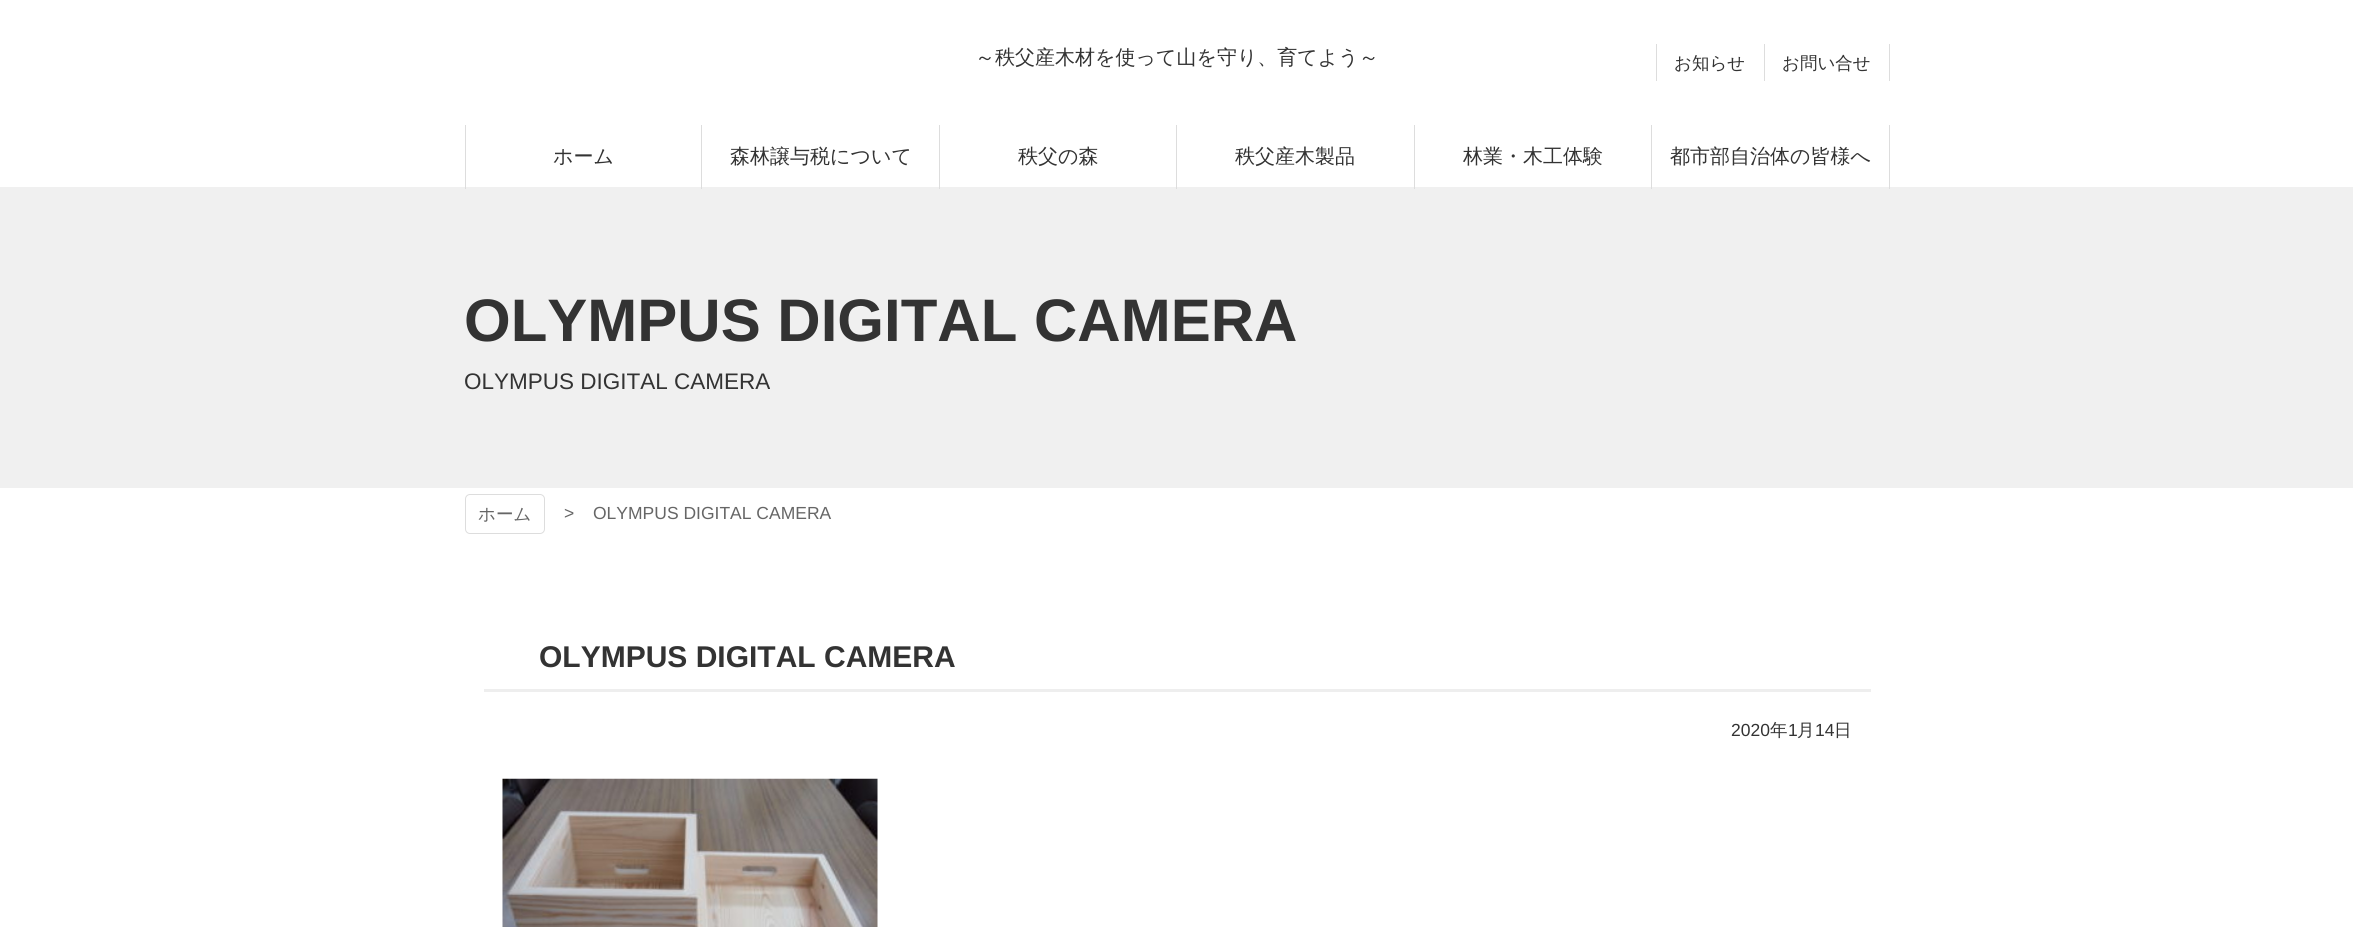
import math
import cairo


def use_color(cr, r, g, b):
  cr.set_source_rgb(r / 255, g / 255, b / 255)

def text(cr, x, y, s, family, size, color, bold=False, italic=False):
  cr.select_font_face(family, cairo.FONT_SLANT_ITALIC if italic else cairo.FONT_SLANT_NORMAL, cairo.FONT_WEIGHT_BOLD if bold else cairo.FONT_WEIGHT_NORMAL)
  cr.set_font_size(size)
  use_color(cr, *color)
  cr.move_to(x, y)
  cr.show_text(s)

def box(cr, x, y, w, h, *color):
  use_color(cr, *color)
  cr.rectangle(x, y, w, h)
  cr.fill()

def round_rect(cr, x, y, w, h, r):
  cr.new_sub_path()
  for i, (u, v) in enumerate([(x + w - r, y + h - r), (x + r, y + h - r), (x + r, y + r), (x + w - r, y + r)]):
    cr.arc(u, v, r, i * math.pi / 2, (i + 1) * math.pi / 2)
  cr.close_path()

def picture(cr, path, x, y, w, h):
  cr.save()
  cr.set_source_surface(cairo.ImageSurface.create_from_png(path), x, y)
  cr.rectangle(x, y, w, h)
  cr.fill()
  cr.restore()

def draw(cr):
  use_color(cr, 255, 255, 255)
  cr.paint()
  box(cr, 1656, 44, 1, 37, 221, 221, 221)
  box(cr, 1889, 44, 1, 37, 221, 221, 221)
  box(cr, 1764, 44, 1, 37, 221, 221, 221)
  box(cr, 0, 187, 2353, 301, 240, 240, 240)
  box(cr, 465, 125, 1, 64, 221, 221, 221)
  box(cr, 701, 125, 1, 64, 221, 221, 221)
  box(cr, 939, 125, 1, 64, 221, 221, 221)
  box(cr, 1176, 125, 1, 64, 221, 221, 221)
  box(cr, 1414, 125, 1, 64, 221, 221, 221)
  box(cr, 1889, 125, 1, 64, 221, 221, 221)
  box(cr, 1651, 125, 1, 64, 221, 221, 221)
  round_rect(cr, 465.5, 494.5, 79, 39, 4.5)
  cr.set_line_width(1)
  cr.stroke()
  box(cr, 484, 689, 1387, 3, 238, 238, 238)
  picture(cr, "img_01.png", 502, 778, 376, 149)
  text(cr, 975, 64, "～秩父産木材を使って山を守り、育てよう～", "WenQuanYi Zen Hei Medium", 20, (51, 51, 51))
  text(cr, 1674, 69, "お知らせ", "WenQuanYi Zen Hei Medium", 17.5, (51, 51, 51))
  text(cr, 1782, 69, "お問い合せ", "WenQuanYi Zen Hei Medium", 17.5, (51, 51, 51))
  text(cr, 553, 163, "ホーム", "WenQuanYi Zen Hei Medium", 20, (51, 51, 51))
  text(cr, 730, 163, "森林譲与税について", "WenQuanYi Zen Hei Medium", 20, (51, 51, 51))
  text(cr, 1018, 163, "秩父の森", "WenQuanYi Zen Hei Medium", 20, (51, 51, 51))
  text(cr, 1235, 163, "秩父産木製品", "WenQuanYi Zen Hei Medium", 20, (51, 51, 51))
  text(cr, 1463, 163, "林業・木工体験", "WenQuanYi Zen Hei Medium", 20, (51, 51, 51))
  text(cr, 1670, 163, "都市部自治体の皆様へ", "WenQuanYi Zen Hei Medium", 20, (51, 51, 51))
  text(cr, 464, 341, "OLYMPUS DIGITAL CAMERA", "Liberation Sans", 60, (51, 51, 51), bold=True)
  text(cr, 464, 389, "OLYMPUS DIGITAL CAMERA", "Liberation Sans", 22.5, (51, 51, 51))
  text(cr, 478, 520, "ホーム", "WenQuanYi Zen Hei Medium", 17.5, (102, 102, 102))
  text(cr, 564, 519, ">", "Liberation Sans", 17.5, (102, 102, 102))
  text(cr, 593, 519, "OLYMPUS DIGITAL CAMERA", "Liberation Sans", 17.5, (102, 102, 102))
  text(cr, 539, 667, "OLYMPUS DIGITAL CAMERA", "Liberation Sans", 30, (51, 51, 51), bold=True)
  text(cr, 1731, 736, "2020", "Liberation Sans", 17.5, (51, 51, 51))
  text(cr, 1770, 736, "年", "WenQuanYi Zen Hei Medium", 17.5, (51, 51, 51))
  text(cr, 1788, 736, "1", "Liberation Sans", 17.5, (51, 51, 51))
  text(cr, 1797, 736, "月", "WenQuanYi Zen Hei Medium", 17.5, (51, 51, 51))
  text(cr, 1815, 736, "14", "Liberation Sans", 17.5, (51, 51, 51))
  text(cr, 1834, 736, "日", "WenQuanYi Zen Hei Medium", 17.5, (51, 51, 51))


surface = cairo.ImageSurface(cairo.FORMAT_RGB24, 2353, 927)
cr = cairo.Context(surface)
options = cairo.FontOptions()
options.set_hint_metrics(cairo.HINT_METRICS_OFF)
options.set_hint_style(cairo.HINT_STYLE_NONE)
cr.set_font_options(options)
cr.set_miter_limit(4)
draw(cr)
surface.write_to_png("out.png")
